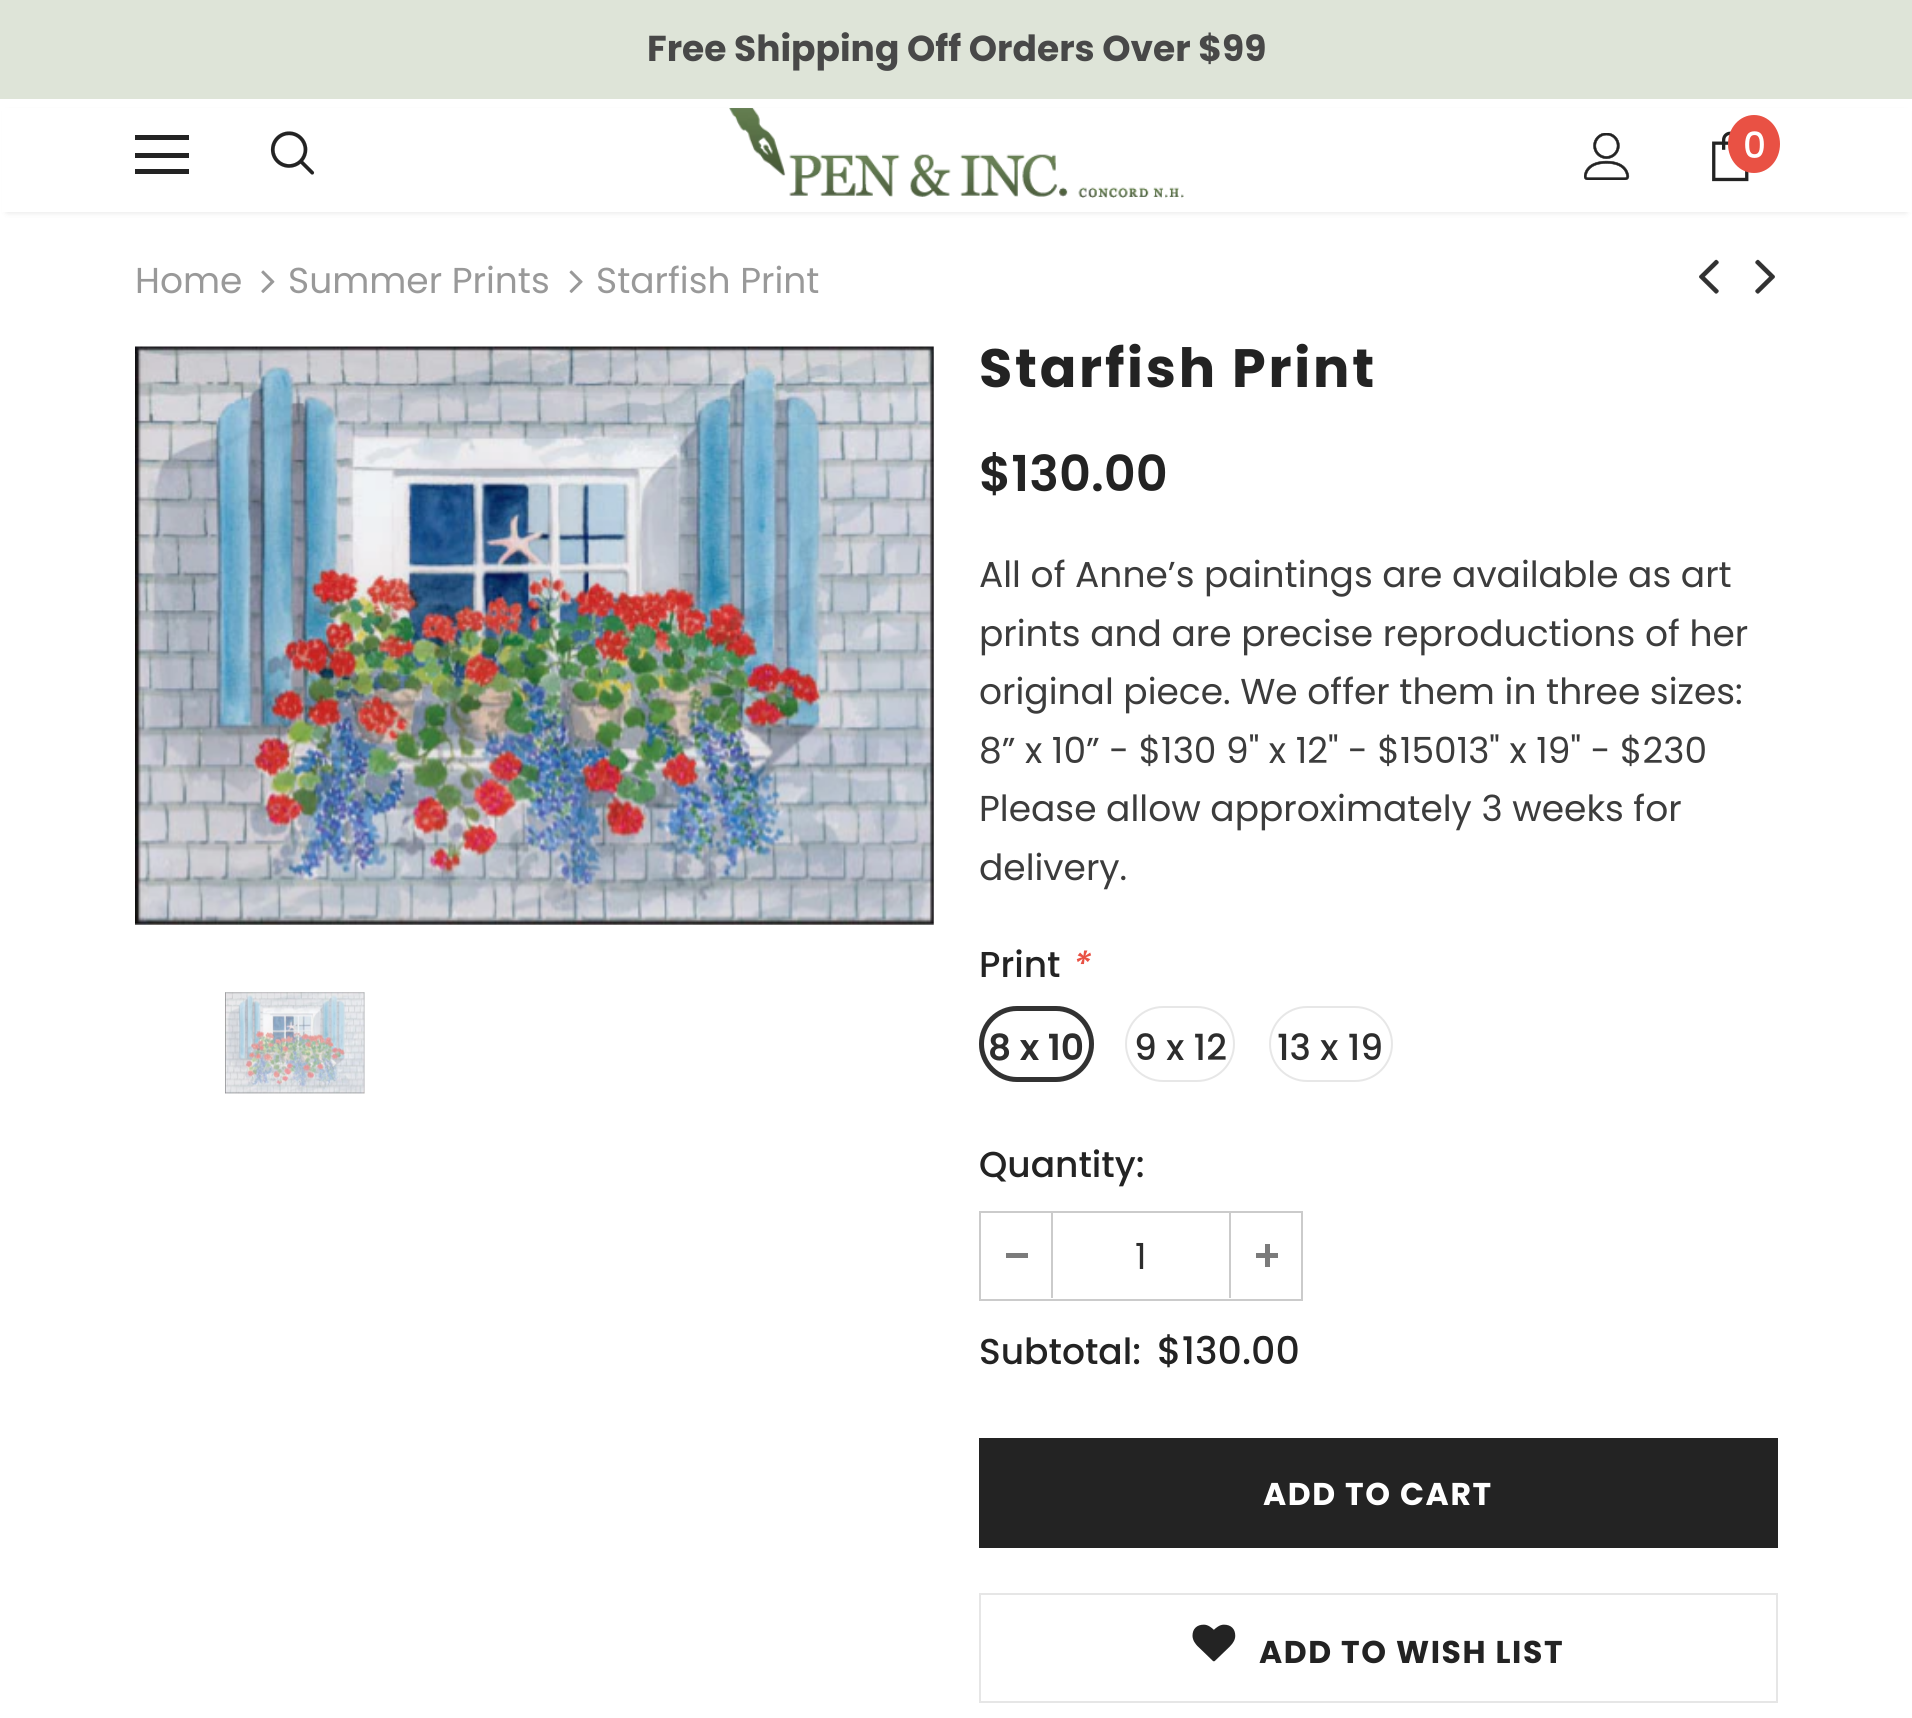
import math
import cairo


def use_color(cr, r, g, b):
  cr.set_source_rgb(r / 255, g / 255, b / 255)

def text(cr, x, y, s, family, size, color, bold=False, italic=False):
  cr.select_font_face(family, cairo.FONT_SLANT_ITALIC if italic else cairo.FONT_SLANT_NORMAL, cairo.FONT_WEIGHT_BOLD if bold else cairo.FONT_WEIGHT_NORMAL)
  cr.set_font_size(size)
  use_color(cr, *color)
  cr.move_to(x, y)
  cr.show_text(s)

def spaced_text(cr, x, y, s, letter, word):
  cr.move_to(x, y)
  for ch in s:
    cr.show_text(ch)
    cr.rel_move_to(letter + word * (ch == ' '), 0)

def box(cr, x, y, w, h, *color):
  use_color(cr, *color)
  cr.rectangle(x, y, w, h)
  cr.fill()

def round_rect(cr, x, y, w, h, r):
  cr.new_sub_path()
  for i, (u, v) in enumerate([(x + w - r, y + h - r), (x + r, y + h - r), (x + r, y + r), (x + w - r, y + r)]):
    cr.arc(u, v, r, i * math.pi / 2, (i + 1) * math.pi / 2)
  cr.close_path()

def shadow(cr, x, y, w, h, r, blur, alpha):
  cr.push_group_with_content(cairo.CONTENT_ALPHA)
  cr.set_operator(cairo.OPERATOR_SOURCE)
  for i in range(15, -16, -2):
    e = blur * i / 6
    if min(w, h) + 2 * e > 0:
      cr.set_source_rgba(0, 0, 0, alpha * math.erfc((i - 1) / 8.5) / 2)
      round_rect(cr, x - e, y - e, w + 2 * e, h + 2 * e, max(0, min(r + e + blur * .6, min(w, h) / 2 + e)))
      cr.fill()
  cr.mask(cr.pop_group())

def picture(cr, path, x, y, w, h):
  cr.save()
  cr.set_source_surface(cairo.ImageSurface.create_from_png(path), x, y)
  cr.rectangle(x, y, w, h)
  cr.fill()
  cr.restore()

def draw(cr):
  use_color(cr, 255, 255, 255)
  cr.paint()
  box(cr, 0, 0, 1912, 99, 222, 228, 216)
  use_color(cr, 0, 0, 0)
  shadow(cr, 7, 113, 1899, 99, 0, 3.5, 0.12)
  box(cr, 2, 108, 1909, 104, 255, 255, 255)
  box(cr, 135, 135, 54, 5, 35, 35, 35)
  box(cr, 135, 153, 54, 5, 35, 35, 35)
  box(cr, 135, 169, 54, 5, 35, 35, 35)
  picture(cr, "img_01.png", 270, 131, 45, 44)
  picture(cr, "img_02.png", 729, 108, 455, 90)
  picture(cr, "img_03.png", 1584, 133, 46, 47)
  picture(cr, "img_04.png", 1712, 131, 37, 51)
  use_color(cr, 233, 81, 68)
  cr.new_path()
  cr.move_to(1754, 115)
  cr.curve_to(1768.5, 115, 1780, 128, 1780, 144)
  cr.curve_to(1780, 160, 1768.5, 173, 1754, 173)
  cr.curve_to(1739.5, 173, 1728, 160, 1728, 144)
  cr.curve_to(1728, 128, 1739.5, 115, 1754, 115)
  cr.close_path()
  cr.fill()
  picture(cr, "img_05.png", 261, 270, 14, 23)
  picture(cr, "img_06.png", 569, 270, 14, 23)
  picture(cr, "img_07.png", 1699, 259, 20, 35)
  picture(cr, "img_08.png", 1755, 259, 20, 35)
  picture(cr, "img_09.png", 135, 346, 799, 579)
  picture(cr, "img_10.png", 225, 992, 140, 102)
  round_rect(cr, 980, 1007, 113, 74, 37)
  use_color(cr, 231, 231, 231)
  cr.stroke()
  round_rect(cr, 981.5, 1008.5, 110, 71, 35.5)
  use_color(cr, 50, 50, 50)
  cr.set_line_width(5)
  cr.stroke()
  round_rect(cr, 1126, 1007, 108, 74, 37)
  use_color(cr, 231, 231, 231)
  cr.set_line_width(2)
  cr.stroke()
  round_rect(cr, 1270, 1007, 122, 74, 37)
  cr.stroke()
  cr.rectangle(980, 1212, 322, 88)
  use_color(cr, 203, 203, 203)
  cr.stroke()
  box(cr, 1051, 1213, 2, 85, 203, 203, 203)
  box(cr, 1006, 1253, 22, 5, 123, 123, 123)
  box(cr, 1229, 1213, 2, 85, 203, 203, 203)
  box(cr, 1256, 1253, 22, 5, 123, 123, 123)
  box(cr, 1265, 1244, 5, 23, 123, 123, 123)
  box(cr, 979, 1438, 799, 110, 35, 35, 35)
  cr.rectangle(980, 1594, 797, 108)
  use_color(cr, 230, 230, 230)
  cr.stroke()
  picture(cr, "img_11.png", 1192, 1624, 44, 38)
  text(cr, 647, 61, "Free Shipping Off Orders Over $99", "Poppins", 36, (72, 72, 72), bold=True)
  text(cr, 1743, 158, "0", "Poppins Medium", 36, (255, 255, 255))
  text(cr, 135, 293, "Home", "Poppins", 36, (153, 153, 153))
  text(cr, 288, 293, "Summer Prints", "Poppins", 36, (153, 153, 153))
  text(cr, 596, 293, "Starfish Print", "Poppins", 36, (153, 153, 153))
  cr.select_font_face("Poppins", cairo.FONT_SLANT_NORMAL, cairo.FONT_WEIGHT_BOLD)
  cr.set_font_size(54)
  use_color(cr, 35, 35, 35)
  spaced_text(cr, 979, 387, "Starfish Print", 2.75, 0)
  text(cr, 979, 491, "$130.00", "Poppins SemiBold", 49.5, (35, 35, 35))
  text(cr, 979, 587, "All of Anne’s paintings are available as art", "Poppins", 36, (60, 60, 60))
  text(cr, 979, 646, "prints and are precise reproductions of her", "Poppins", 36, (60, 60, 60))
  text(cr, 979, 704, "original piece. We offer them in three sizes:", "Poppins", 36, (60, 60, 60))
  text(cr, 979, 763, "8” x 10” - $130 9\" x 12\" - $15013\" x 19\" - $230", "Poppins", 36, (60, 60, 60))
  text(cr, 979, 821, "Please allow approximately 3 weeks for", "Poppins", 36, (60, 60, 60))
  text(cr, 979, 880, "delivery.", "Poppins", 36, (60, 60, 60))
  text(cr, 979, 977, "Print", "Poppins Medium", 36, (35, 35, 35))
  text(cr, 1070, 977, "*", "Poppins Medium", 36, (233, 81, 68), italic=True)
  text(cr, 988, 1060, "8 x 10", "Poppins SemiBold", 36, (45, 45, 45))
  text(cr, 1134, 1060, "9 x 12", "Poppins Medium", 36, (45, 45, 45))
  text(cr, 1277, 1060, "13 x 19", "Poppins Medium", 36, (45, 45, 45))
  text(cr, 979, 1177, "Quantity:", "Poppins Medium", 36, (35, 35, 35))
  text(cr, 1135, 1269, "1", "Poppins", 36, (45, 45, 45))
  text(cr, 979, 1364, "Subtotal:", "Poppins Medium", 36, (35, 35, 35))
  text(cr, 1157, 1364, "$130.00", "Poppins Medium", 38, (35, 35, 35))
  cr.select_font_face("Poppins", cairo.FONT_SLANT_NORMAL, cairo.FONT_WEIGHT_BOLD)
  cr.set_font_size(31.5)
  use_color(cr, 255, 255, 255)
  spaced_text(cr, 1263, 1505, "ADD TO CART", 1.6, 0)
  use_color(cr, 35, 35, 35)
  spaced_text(cr, 1259, 1663, "ADD TO WISH LIST", 1.6, 0)


surface = cairo.ImageSurface(cairo.FORMAT_RGB24, 1912, 1718)
cr = cairo.Context(surface)
options = cairo.FontOptions()
options.set_hint_metrics(cairo.HINT_METRICS_OFF)
options.set_hint_style(cairo.HINT_STYLE_NONE)
cr.set_font_options(options)
cr.set_miter_limit(4)
draw(cr)
surface.write_to_png("out.png")
